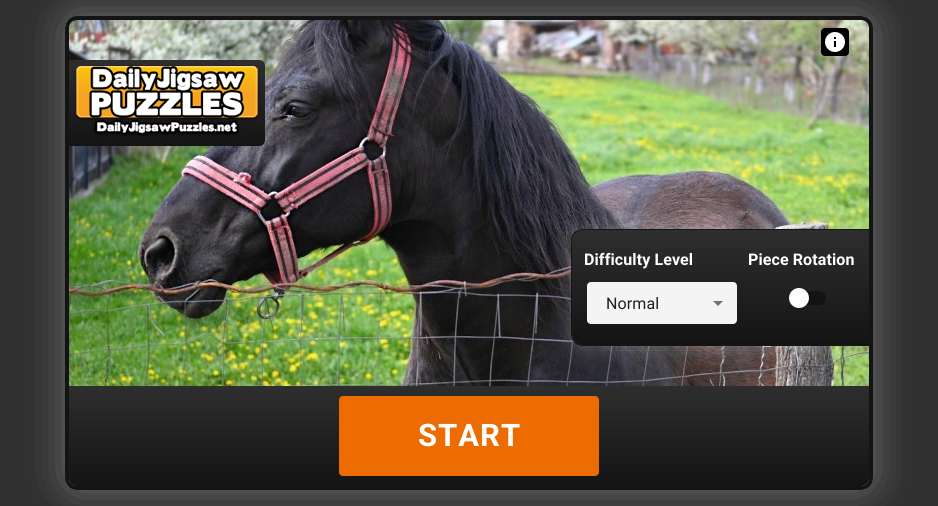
import math
import cairo


def use_color(cr, r, g, b):
  cr.set_source_rgb(r / 255, g / 255, b / 255)

def spaced_text(cr, x, y, s, letter, word):
  cr.move_to(x, y)
  for ch in s:
    cr.show_text(ch)
    cr.rel_move_to(letter + word * (ch == ' '), 0)

def round_rect(cr, x, y, w, h, r):
  cr.new_sub_path()
  for i, (u, v) in enumerate([(x + w - r, y + h - r), (x + r, y + h - r), (x + r, y + r), (x + w - r, y + r)]):
    cr.arc(u, v, r, i * math.pi / 2, (i + 1) * math.pi / 2)
  cr.close_path()

def shadow(cr, x, y, w, h, r, blur, alpha):
  cr.push_group_with_content(cairo.CONTENT_ALPHA)
  cr.set_operator(cairo.OPERATOR_SOURCE)
  for i in range(15, -16, -2):
    e = blur * i / 6
    if min(w, h) + 2 * e > 0:
      cr.set_source_rgba(0, 0, 0, alpha * math.erfc((i - 1) / 8.5) / 2)
      round_rect(cr, x - e, y - e, w + 2 * e, h + 2 * e, max(0, min(r + e + blur * .6, min(w, h) / 2 + e)))
      cr.fill()
  cr.mask(cr.pop_group())

def picture(cr, path, x, y, w, h):
  cr.save()
  cr.set_source_surface(cairo.ImageSurface.create_from_png(path), x, y)
  cr.rectangle(x, y, w, h)
  cr.fill()
  cr.restore()

def draw(cr):
  use_color(cr, 48, 48, 48)
  cr.paint()
  use_color(cr, 255, 255, 255)
  shadow(cr, 65, 16, 808, 474, 12, 20, 0.3)
  picture(cr, "img_01.png", 65, 16, 808, 474)
  round_rect(cr, 67, 18, 804, 470, 10)
  use_color(cr, 20, 20, 20)
  cr.set_line_width(4)
  cr.stroke()
  use_color(cr, 0, 0, 0)
  round_rect(cr, 821, 28, 28, 28, 4)
  cr.fill()
  picture(cr, "img_02.png", 825, 32, 20, 20)
  gradient = cairo.LinearGradient(167, 60, 167, 146)
  gradient.add_color_stop_rgba(0, 0.18, 0.18, 0.18, 1)
  gradient.add_color_stop_rgba(1, 0.078, 0.078, 0.078, 1)
  cr.set_source(gradient)
  cr.new_path()
  cr.move_to(69, 60)
  cr.line_to(259, 60)
  cr.curve_to(262.5, 60, 265, 62.5, 265, 66)
  cr.line_to(265, 140)
  cr.curve_to(265, 143.5, 262.5, 146, 259, 146)
  cr.line_to(69, 146)
  cr.close_path()
  cr.fill()
  picture(cr, "img_03.png", 74, 65, 186, 72)
  cr.save()
  round_rect(cr, 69, 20, 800, 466, 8)
  cr.clip()
  use_color(cr, 255, 255, 255)
  shadow(cr, 571, 229, 298, 117, 12, 10, 0.3)
  cr.restore()
  gradient = cairo.LinearGradient(721, 230, 721, 345)
  gradient.add_color_stop_rgba(0, 0.18, 0.18, 0.18, 1)
  gradient.add_color_stop_rgba(1, 0.078, 0.078, 0.078, 1)
  cr.set_source(gradient)
  cr.new_path()
  cr.move_to(583, 230)
  cr.line_to(869, 230)
  cr.line_to(869, 345)
  cr.line_to(583, 345)
  cr.curve_to(577, 345, 572, 340, 572, 334)
  cr.line_to(572, 241)
  cr.curve_to(572, 235, 577, 230, 583, 230)
  cr.close_path()
  cr.fill()
  use_color(cr, 20, 20, 20)
  cr.set_fill_rule(cairo.FILL_RULE_EVEN_ODD)
  cr.new_path()
  cr.move_to(583, 229)
  cr.line_to(869, 229)
  cr.line_to(869, 346)
  cr.line_to(583, 346)
  cr.curve_to(576, 346, 571, 341, 571, 334)
  cr.line_to(571, 241)
  cr.curve_to(571, 234, 576, 229, 583, 229)
  cr.close_path()
  cr.move_to(583, 230)
  cr.line_to(869, 230)
  cr.line_to(869, 345)
  cr.line_to(583, 345)
  cr.curve_to(577, 345, 572, 340, 572, 334)
  cr.line_to(572, 241)
  cr.curve_to(572, 235, 577, 230, 583, 230)
  cr.close_path()
  cr.fill()
  use_color(cr, 244, 244, 244)
  round_rect(cr, 587, 282, 150, 42, 4)
  cr.fill()
  use_color(cr, 112, 112, 112)
  cr.set_fill_rule(cairo.FILL_RULE_WINDING)
  cr.new_path()
  cr.move_to(713, 301)
  cr.line_to(718, 306)
  cr.line_to(723, 301)
  cr.close_path()
  cr.fill()
  cr.set_source_rgba(0, 0, 0, 0.38)
  round_rect(cr, 792, 291, 34, 14, 7)
  cr.fill()
  use_color(cr, 255, 255, 255)
  cr.arc(799, 298, 10, 0, 2 * math.pi)
  cr.fill()
  gradient = cairo.LinearGradient(469, 386, 469, 486)
  gradient.add_color_stop_rgba(0, 0.18, 0.18, 0.18, 1)
  gradient.add_color_stop_rgba(1, 0.078, 0.078, 0.078, 1)
  cr.set_source(gradient)
  cr.new_path()
  cr.move_to(69, 386)
  cr.line_to(869, 386)
  cr.line_to(869, 478)
  cr.curve_to(869, 482.5, 865.5, 486, 861, 486)
  cr.line_to(77, 486)
  cr.curve_to(72.5, 486, 69, 482.5, 69, 478)
  cr.close_path()
  cr.fill()
  use_color(cr, 237, 108, 2)
  round_rect(cr, 339, 396, 260, 80, 4)
  cr.fill()
  cr.select_font_face("Roboto", cairo.FONT_SLANT_NORMAL, cairo.FONT_WEIGHT_BOLD)
  cr.set_font_size(16)
  use_color(cr, 255, 255, 255)
  spaced_text(cr, 584, 265, "Difficulty Level", 0.1, 0)
  cr.select_font_face("Roboto")
  use_color(cr, 32, 32, 32)
  spaced_text(cr, 606, 309, "Normal", 0.1, 0)
  cr.select_font_face("Roboto", cairo.FONT_SLANT_NORMAL, cairo.FONT_WEIGHT_BOLD)
  use_color(cr, 255, 255, 255)
  spaced_text(cr, 748, 265, "Piece Rotation", 0.1, 0)
  cr.set_font_size(31)
  spaced_text(cr, 418, 446, "START", 1, 0)


surface = cairo.ImageSurface(cairo.FORMAT_RGB24, 938, 506)
cr = cairo.Context(surface)
options = cairo.FontOptions()
options.set_hint_metrics(cairo.HINT_METRICS_OFF)
options.set_hint_style(cairo.HINT_STYLE_NONE)
cr.set_font_options(options)
cr.set_miter_limit(4)
draw(cr)
surface.write_to_png("out.png")
